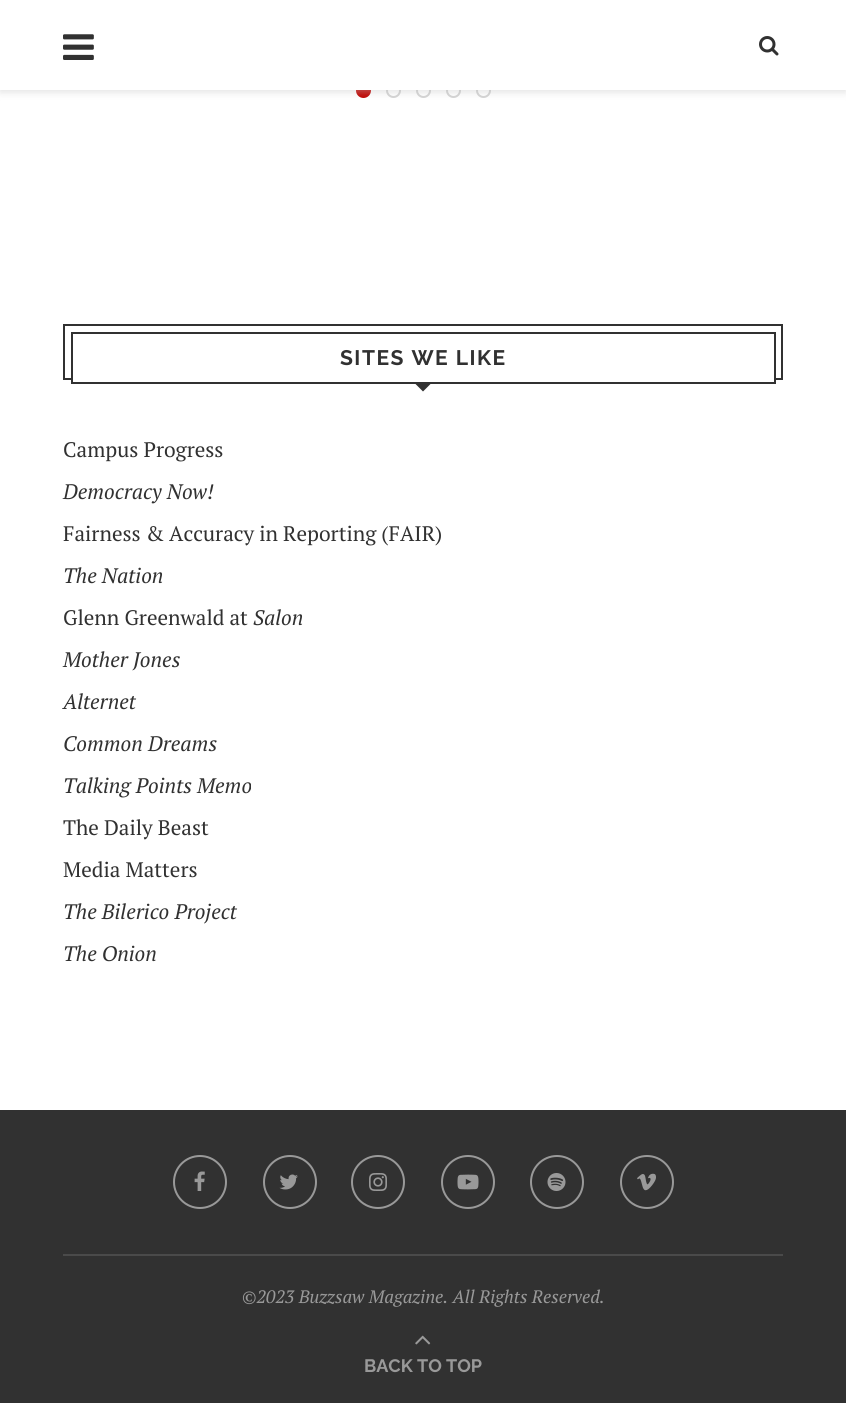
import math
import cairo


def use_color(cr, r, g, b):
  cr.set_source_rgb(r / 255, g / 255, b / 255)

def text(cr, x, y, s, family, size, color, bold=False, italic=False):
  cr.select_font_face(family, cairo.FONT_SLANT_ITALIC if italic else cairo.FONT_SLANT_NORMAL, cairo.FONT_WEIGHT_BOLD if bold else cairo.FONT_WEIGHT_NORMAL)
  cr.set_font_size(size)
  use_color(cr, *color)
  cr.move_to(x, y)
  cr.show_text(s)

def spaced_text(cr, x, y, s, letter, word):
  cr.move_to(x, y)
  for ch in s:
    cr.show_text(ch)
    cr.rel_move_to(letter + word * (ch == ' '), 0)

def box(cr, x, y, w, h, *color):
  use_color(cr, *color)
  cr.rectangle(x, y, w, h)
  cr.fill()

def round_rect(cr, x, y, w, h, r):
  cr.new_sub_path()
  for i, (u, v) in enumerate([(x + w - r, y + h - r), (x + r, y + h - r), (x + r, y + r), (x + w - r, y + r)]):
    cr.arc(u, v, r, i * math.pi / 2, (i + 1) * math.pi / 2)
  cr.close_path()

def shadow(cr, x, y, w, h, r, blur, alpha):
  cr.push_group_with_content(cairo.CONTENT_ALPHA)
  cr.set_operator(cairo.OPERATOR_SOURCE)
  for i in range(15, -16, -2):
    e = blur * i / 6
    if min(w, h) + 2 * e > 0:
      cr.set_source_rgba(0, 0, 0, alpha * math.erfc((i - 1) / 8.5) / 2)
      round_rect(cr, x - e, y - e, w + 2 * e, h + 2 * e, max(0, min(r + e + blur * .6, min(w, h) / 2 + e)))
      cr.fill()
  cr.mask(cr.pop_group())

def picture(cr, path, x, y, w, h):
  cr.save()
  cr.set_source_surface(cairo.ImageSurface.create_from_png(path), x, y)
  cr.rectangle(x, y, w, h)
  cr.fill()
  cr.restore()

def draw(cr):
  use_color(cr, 255, 255, 255)
  cr.paint()
  use_color(cr, 191, 6, 3)
  cr.arc(363.5, 90.5, 6.5, 0, 2 * math.pi)
  cr.fill_preserve()
  cr.stroke()
  cr.arc(393.5, 90.5, 6.5, 0, 2 * math.pi)
  use_color(cr, 212, 212, 212)
  cr.stroke()
  cr.arc(423.5, 90.5, 6.5, 0, 2 * math.pi)
  cr.stroke()
  cr.arc(453.5, 90.5, 6.5, 0, 2 * math.pi)
  cr.stroke()
  cr.arc(483.5, 90.5, 6.5, 0, 2 * math.pi)
  cr.stroke()
  use_color(cr, 190, 190, 190)
  shadow(cr, 0, 2, 846, 90, 0, 4, 0.46)
  box(cr, 0, 0, 846, 90, 255, 255, 255)
  picture(cr, "img_01.png", 63, 34, 31, 26)
  picture(cr, "img_02.png", 759, 36, 20, 20)
  cr.rectangle(64, 325, 718, 54)
  use_color(cr, 49, 49, 49)
  cr.stroke()
  box(cr, 73, 378, 701, 2, 255, 255, 255)
  cr.rectangle(72, 333, 703, 50)
  use_color(cr, 49, 49, 49)
  cr.stroke()
  cr.new_path()
  cr.move_to(414, 382.5)
  cr.line_to(432, 382.5)
  cr.line_to(423, 391.5)
  cr.close_path()
  cr.fill()
  box(cr, 0, 1110, 846, 293, 49, 49, 49)
  box(cr, 63, 1254, 720, 2, 74, 74, 74)
  cr.arc(200, 1182, 26, 0, 2 * math.pi)
  use_color(cr, 153, 153, 153)
  cr.stroke()
  picture(cr, "img_03.png", 194, 1171, 11, 20)
  cr.arc(290, 1182, 26, 0, 2 * math.pi)
  cr.stroke()
  picture(cr, "img_04.png", 279, 1174, 19, 16)
  cr.arc(378, 1182, 26, 0, 2 * math.pi)
  cr.stroke()
  picture(cr, "img_05.png", 369, 1173, 18, 18)
  cr.arc(468, 1182, 26, 0, 2 * math.pi)
  cr.stroke()
  picture(cr, "img_06.png", 457, 1174, 22, 16)
  cr.arc(557, 1182, 26, 0, 2 * math.pi)
  cr.stroke()
  picture(cr, "img_07.png", 547, 1173, 19, 18)
  cr.arc(647, 1182, 26, 0, 2 * math.pi)
  cr.stroke()
  picture(cr, "img_08.png", 637, 1173, 19, 18)
  picture(cr, "img_09.png", 415, 1335, 16, 10)
  cr.select_font_face("Raleway", cairo.FONT_SLANT_NORMAL, cairo.FONT_WEIGHT_BOLD)
  cr.set_font_size(21)
  use_color(cr, 49, 49, 49)
  spaced_text(cr, 340, 365, "SITES WE LIKE", 1.5, 0)
  text(cr, 63, 457, "Campus Progress", "PT Serif", 21, (49, 49, 49))
  text(cr, 63, 499, "Democracy Now!", "PT Serif", 21, (49, 49, 49), italic=True)
  text(cr, 63, 541, "Fairness & Accuracy in Reporting (FAIR)", "PT Serif", 21, (49, 49, 49))
  text(cr, 63, 583, "The Nation", "PT Serif", 21, (49, 49, 49), italic=True)
  text(cr, 63, 625, "Glenn Greenwald at", "PT Serif", 21, (49, 49, 49))
  text(cr, 253, 625, "Salon", "PT Serif", 21, (49, 49, 49), italic=True)
  text(cr, 63, 667, "Mother Jones", "PT Serif", 21, (49, 49, 49), italic=True)
  text(cr, 63, 709, "Alternet", "PT Serif", 21, (49, 49, 49), italic=True)
  text(cr, 63, 751, "Common Dreams", "PT Serif", 21, (49, 49, 49), italic=True)
  text(cr, 63, 793, "Talking Points Memo", "PT Serif", 21, (49, 49, 49), italic=True)
  text(cr, 63, 835, "The Daily Beast", "PT Serif", 21, (49, 49, 49))
  text(cr, 63, 877, "Media Matters", "PT Serif", 21, (49, 49, 49))
  text(cr, 63, 919, "The Bilerico Project", "PT Serif", 21, (49, 49, 49), italic=True)
  text(cr, 63, 961, "The Onion", "PT Serif", 21, (49, 49, 49), italic=True)
  text(cr, 242, 1303, "©2023 Buzzsaw Magazine. All Rights Reserved.", "PT Serif", 18, (153, 153, 153), italic=True)
  text(cr, 364, 1372, "BACK TO TOP", "Raleway", 18, (153, 153, 153), bold=True)


surface = cairo.ImageSurface(cairo.FORMAT_RGB24, 846, 1403)
cr = cairo.Context(surface)
options = cairo.FontOptions()
options.set_hint_metrics(cairo.HINT_METRICS_OFF)
options.set_hint_style(cairo.HINT_STYLE_NONE)
cr.set_font_options(options)
cr.set_miter_limit(4)
draw(cr)
surface.write_to_png("out.png")
